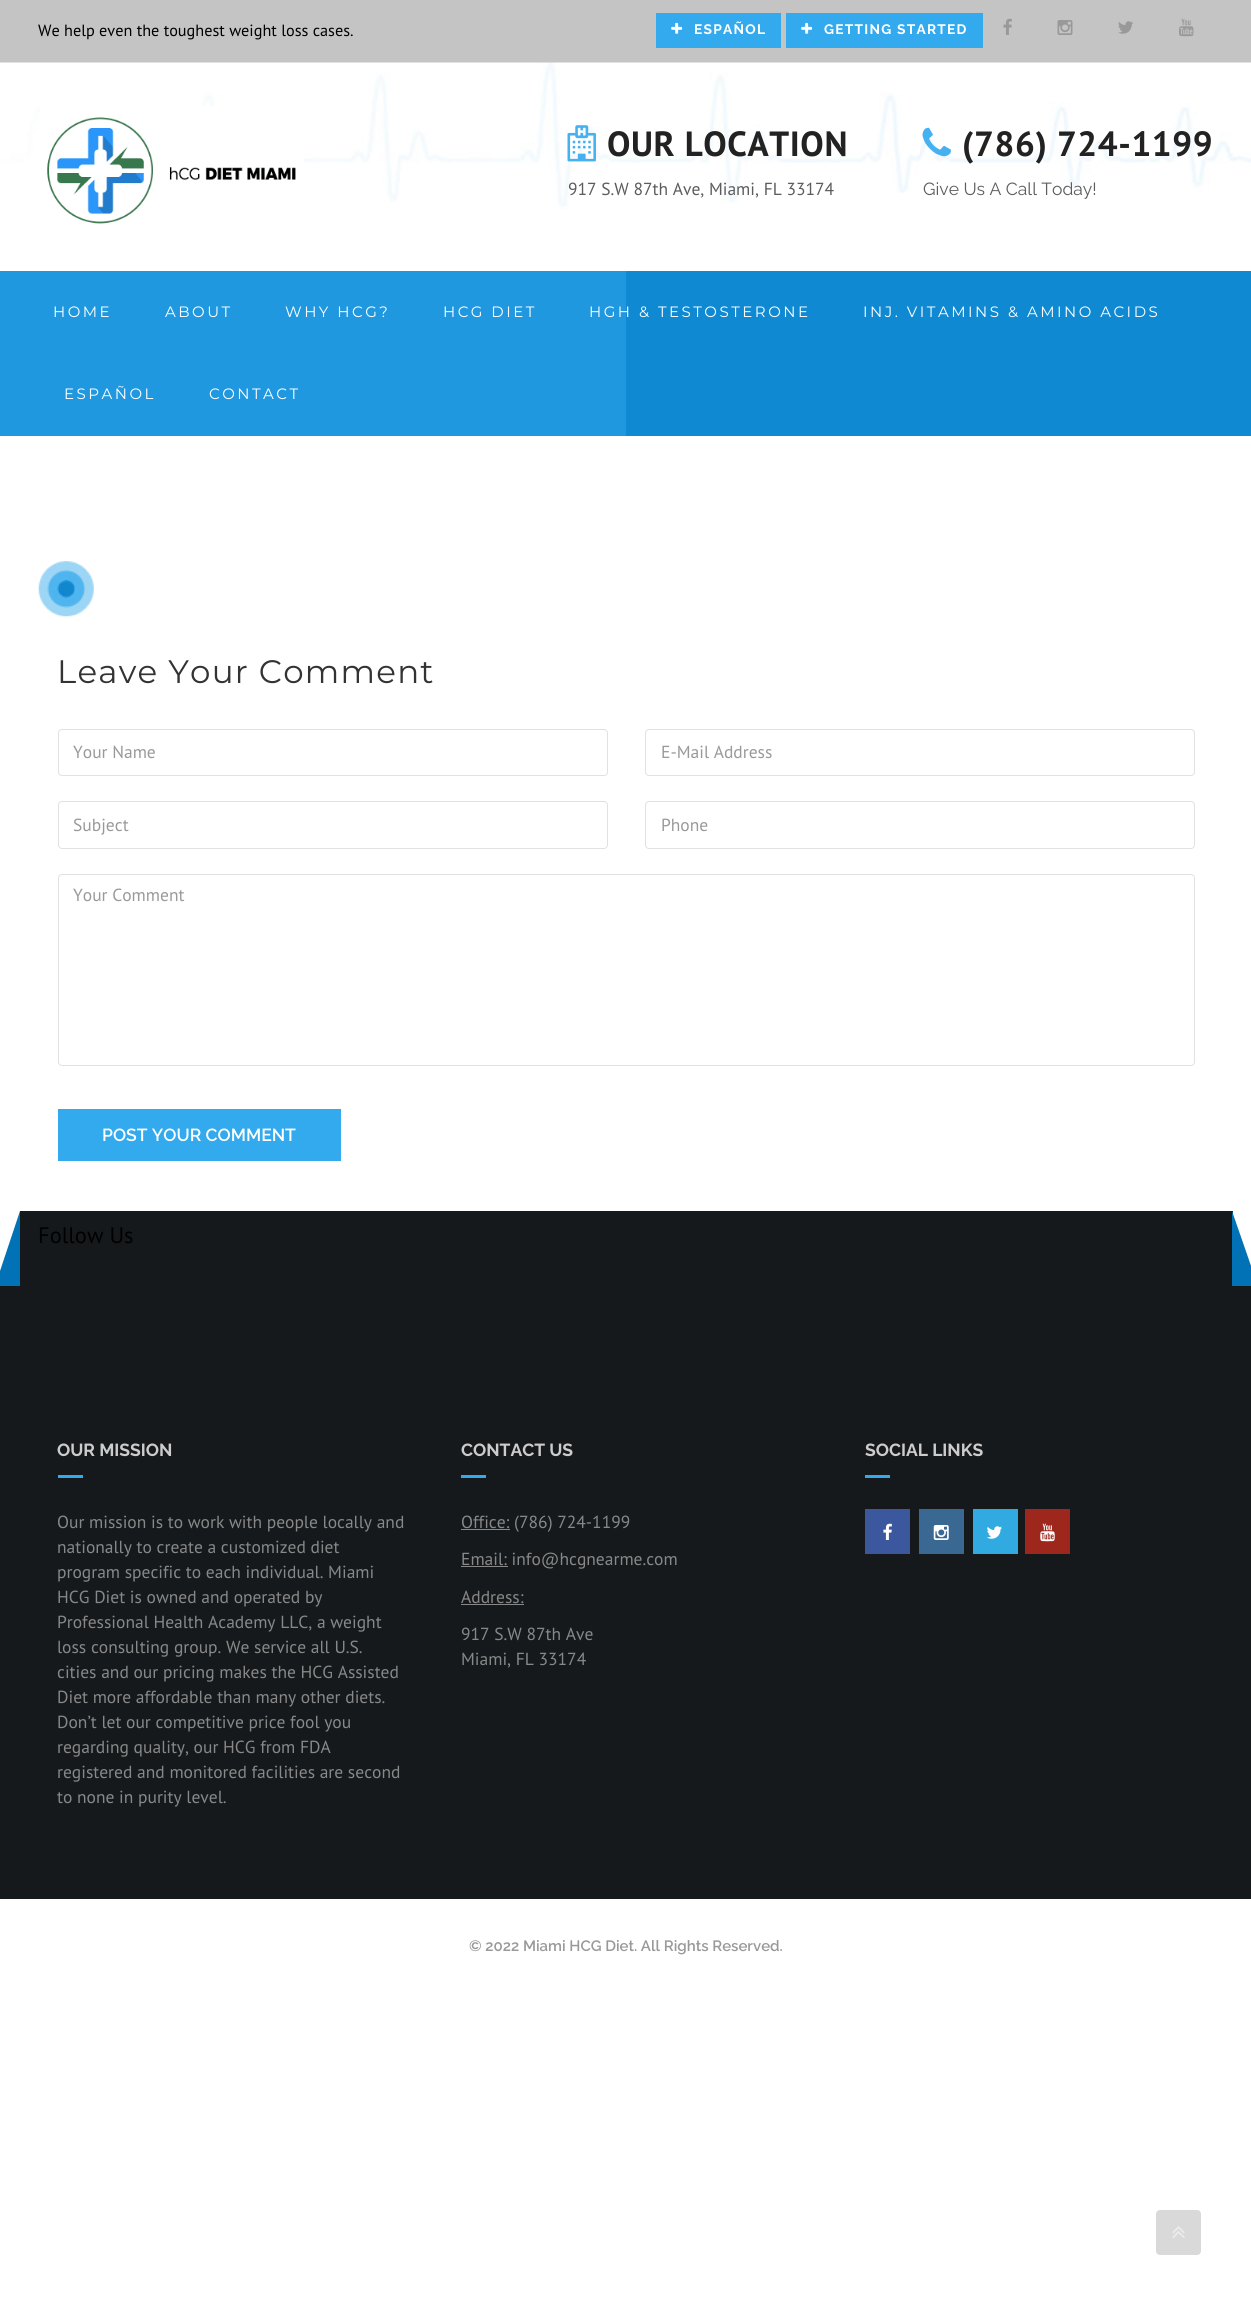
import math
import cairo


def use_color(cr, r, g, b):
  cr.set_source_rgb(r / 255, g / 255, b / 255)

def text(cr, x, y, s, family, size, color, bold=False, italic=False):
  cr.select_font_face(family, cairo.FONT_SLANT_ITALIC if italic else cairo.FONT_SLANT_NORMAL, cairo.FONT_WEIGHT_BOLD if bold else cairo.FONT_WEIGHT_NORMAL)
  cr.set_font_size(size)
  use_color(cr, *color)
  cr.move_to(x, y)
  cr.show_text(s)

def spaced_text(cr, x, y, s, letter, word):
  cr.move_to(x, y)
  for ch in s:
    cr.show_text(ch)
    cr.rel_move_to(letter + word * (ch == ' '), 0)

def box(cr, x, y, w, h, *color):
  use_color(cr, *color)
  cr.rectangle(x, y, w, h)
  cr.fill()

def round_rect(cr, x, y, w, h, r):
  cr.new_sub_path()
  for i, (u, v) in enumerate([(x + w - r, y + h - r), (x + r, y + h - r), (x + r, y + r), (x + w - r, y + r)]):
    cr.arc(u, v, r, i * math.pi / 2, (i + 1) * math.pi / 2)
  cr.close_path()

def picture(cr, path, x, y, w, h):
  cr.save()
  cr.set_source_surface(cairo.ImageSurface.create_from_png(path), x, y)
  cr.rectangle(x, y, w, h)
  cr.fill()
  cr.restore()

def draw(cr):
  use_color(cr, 255, 255, 255)
  cr.paint()
  box(cr, 0, 0, 1251, 63, 196, 196, 196)
  box(cr, 656, 13, 125, 35, 51, 169, 238)
  picture(cr, "img_01.png", 671, 22, 12, 12)
  box(cr, 786, 13, 197, 35, 51, 169, 238)
  picture(cr, "img_01.png", 801, 22, 12, 12)
  picture(cr, "img_02.png", 1003, 18, 9, 17)
  picture(cr, "img_03.png", 1057, 20, 16, 15)
  picture(cr, "img_04.png", 1118, 21, 15, 13)
  picture(cr, "img_05.png", 1179, 18, 15, 19)
  picture(cr, "img_06.png", 0, 62, 1251, 147)
  picture(cr, "img_07.png", 40, 106, 264, 118)
  picture(cr, "img_08.png", 567, 125, 29, 37)
  picture(cr, "img_09.png", 922, 127, 29, 30)
  box(cr, 0, 271, 626, 165, 32, 152, 223)
  box(cr, 626, 271, 625, 165, 15, 137, 209)
  picture(cr, "img_10.png", 38, 561, 56, 56)
  round_rect(cr, 58.5, 729.5, 549, 46, 3.5)
  use_color(cr, 226, 225, 225)
  cr.set_line_width(1)
  cr.stroke()
  round_rect(cr, 645.5, 729.5, 549, 46, 3.5)
  cr.stroke()
  round_rect(cr, 58.5, 801.5, 549, 47, 3.5)
  cr.stroke()
  round_rect(cr, 645.5, 801.5, 549, 47, 3.5)
  cr.stroke()
  round_rect(cr, 58.5, 874.5, 1136, 191, 3.5)
  cr.stroke()
  box(cr, 58, 1109, 283, 52, 51, 169, 238)
  box(cr, 0, 1286, 1251, 613, 21, 25, 28)
  box(cr, 20, 1211, 1213, 75, 21, 25, 28)
  use_color(cr, 0, 114, 181)
  cr.new_path()
  cr.move_to(20, 1286)
  cr.line_to(-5, 1286)
  cr.line_to(20, 1211)
  cr.close_path()
  cr.fill()
  cr.new_path()
  cr.move_to(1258, 1286)
  cr.line_to(1232, 1286)
  cr.line_to(1232, 1211)
  cr.close_path()
  cr.fill()
  box(cr, 58, 1475, 25, 3, 51, 169, 238)
  box(cr, 461, 1475, 25, 3, 51, 169, 238)
  box(cr, 461, 1529, 49, 1, 136, 136, 136)
  box(cr, 461, 1566, 47, 1, 136, 136, 136)
  box(cr, 461, 1604, 63, 1, 136, 136, 136)
  box(cr, 865, 1475, 25, 3, 51, 169, 238)
  box(cr, 865, 1509, 45, 45, 59, 87, 157)
  picture(cr, "img_11.png", 883, 1523, 9, 17)
  box(cr, 919, 1509, 45, 45, 57, 104, 146)
  picture(cr, "img_12.png", 933, 1525, 16, 15)
  box(cr, 973, 1509, 45, 45, 49, 170, 226)
  picture(cr, "img_13.png", 986, 1526, 16, 13)
  box(cr, 1025, 1509, 45, 45, 157, 38, 29)
  picture(cr, "img_14.png", 1040, 1523, 15, 19)
  use_color(cr, 217, 217, 217)
  round_rect(cr, 1156, 2210, 45, 45, 4)
  cr.fill()
  picture(cr, "img_15.png", 1172, 2226, 13, 12)
  text(cr, 38, 36, "We help even the toughest weight loss cases.", "PT Sans", 16.25, (0, 0, 0))
  cr.select_font_face("Raleway", cairo.FONT_SLANT_NORMAL, cairo.FONT_WEIGHT_BOLD)
  cr.set_font_size(13.75)
  use_color(cr, 255, 255, 255)
  spaced_text(cr, 694, 34, "ESPAÑOL", 1.25, 0)
  spaced_text(cr, 824, 34, "GETTING STARTED", 1.25, 0)
  cr.select_font_face("PT Sans", cairo.FONT_SLANT_NORMAL, cairo.FONT_WEIGHT_BOLD)
  cr.set_font_size(35)
  use_color(cr, 34, 34, 34)
  spaced_text(cr, 607, 156, "OUR LOCATION", 0.6, 0)
  text(cr, 568, 195, "917 S.W 87th Ave, Miami, FL 33174", "PT Sans", 17.5, (90, 92, 93))
  cr.select_font_face("PT Sans", cairo.FONT_SLANT_NORMAL, cairo.FONT_WEIGHT_BOLD)
  cr.set_font_size(35)
  use_color(cr, 34, 34, 34)
  spaced_text(cr, 962, 156, "(786) 724-1199", 0.6, 0)
  text(cr, 923, 195, "Give Us A Call Today!", "Raleway", 17.5, (90, 92, 93))
  cr.select_font_face("Montserrat")
  cr.set_font_size(15)
  use_color(cr, 255, 255, 255)
  spaced_text(cr, 53, 317, "HOME", 2.5, 0)
  spaced_text(cr, 165, 317, "ABOUT", 2.5, 0)
  spaced_text(cr, 285, 317, "WHY HCG?", 2.5, 0)
  spaced_text(cr, 443, 317, "HCG DIET", 2.5, 0)
  spaced_text(cr, 589, 317, "HGH & TESTOSTERONE", 2.5, 0)
  spaced_text(cr, 863, 317, "INJ. VITAMINS & AMINO ACIDS", 2.5, 0)
  spaced_text(cr, 64, 399, "ESPAÑOL", 2.5, 0)
  spaced_text(cr, 209, 399, "CONTACT", 2.5, 0)
  cr.set_font_size(32.5)
  use_color(cr, 51, 51, 51)
  spaced_text(cr, 57, 683, "Leave Your Comment", 1.25, 0)
  text(cr, 73, 758, "Your Name", "PT Sans", 17.5, (153, 153, 153))
  text(cr, 661, 758, "E-Mail Address", "PT Sans", 17.5, (153, 153, 153))
  text(cr, 73, 831, "Subject", "PT Sans", 17.5, (153, 153, 153))
  text(cr, 661, 831, "Phone", "PT Sans", 17.5, (153, 153, 153))
  text(cr, 73, 901, "Your Comment", "PT Sans", 17.5, (153, 153, 153))
  text(cr, 102, 1141, "POST YOUR COMMENT", "Raleway SemiBold", 17.5, (255, 255, 255))
  text(cr, 38, 1243, "Follow Us", "PT Sans", 22.5, (0, 0, 0))
  text(cr, 57, 1456, "OUR MISSION", "Raleway", 17.5, (204, 204, 204), bold=True)
  text(cr, 57, 1528, "Our mission is to work with people locally and", "PT Sans", 17.5, (136, 136, 136))
  text(cr, 57, 1553, "nationally to create a customized diet", "PT Sans", 17.5, (136, 136, 136))
  text(cr, 57, 1578, "program specific to each individual. Miami", "PT Sans", 17.5, (136, 136, 136))
  text(cr, 57, 1603, "HCG Diet is owned and operated by", "PT Sans", 17.5, (136, 136, 136))
  text(cr, 57, 1628, "Professional Health Academy LLC, a weight", "PT Sans", 17.5, (136, 136, 136))
  text(cr, 57, 1653, "loss consulting group. We service all U.S.", "PT Sans", 17.5, (136, 136, 136))
  text(cr, 57, 1678, "cities and our pricing makes the HCG Assisted", "PT Sans", 17.5, (136, 136, 136))
  text(cr, 57, 1703, "Diet more affordable than many other diets.", "PT Sans", 17.5, (136, 136, 136))
  text(cr, 57, 1728, "Don’t let our competitive price fool you", "PT Sans", 17.5, (136, 136, 136))
  text(cr, 57, 1753, "regarding quality, our HCG from FDA", "PT Sans", 17.5, (136, 136, 136))
  text(cr, 57, 1778, "registered and monitored facilities are second", "PT Sans", 17.5, (136, 136, 136))
  text(cr, 57, 1803, "to none in purity level.", "PT Sans", 17.5, (136, 136, 136))
  text(cr, 461, 1456, "CONTACT US", "Raleway", 17.5, (204, 204, 204), bold=True)
  text(cr, 461, 1528, "Office: (786) 724-1199", "PT Sans", 17.5, (136, 136, 136))
  text(cr, 461, 1565, "Email: info@hcgnearme.com", "PT Sans", 17.5, (136, 136, 136))
  text(cr, 461, 1603, "Address:", "PT Sans", 17.5, (136, 136, 136))
  text(cr, 461, 1640, "917 S.W 87th Ave", "PT Sans", 17.5, (136, 136, 136))
  text(cr, 461, 1665, "Miami, FL 33174", "PT Sans", 17.5, (136, 136, 136))
  text(cr, 865, 1456, "SOCIAL LINKS", "Raleway", 17.5, (204, 204, 204), bold=True)
  text(cr, 469, 1951, "© 2022 Miami HCG Diet. All Rights Reserved.", "Raleway SemiBold", 15, (153, 153, 153))


surface = cairo.ImageSurface(cairo.FORMAT_RGB24, 1251, 2304)
cr = cairo.Context(surface)
options = cairo.FontOptions()
options.set_hint_metrics(cairo.HINT_METRICS_OFF)
options.set_hint_style(cairo.HINT_STYLE_NONE)
cr.set_font_options(options)
cr.set_miter_limit(4)
draw(cr)
surface.write_to_png("out.png")
